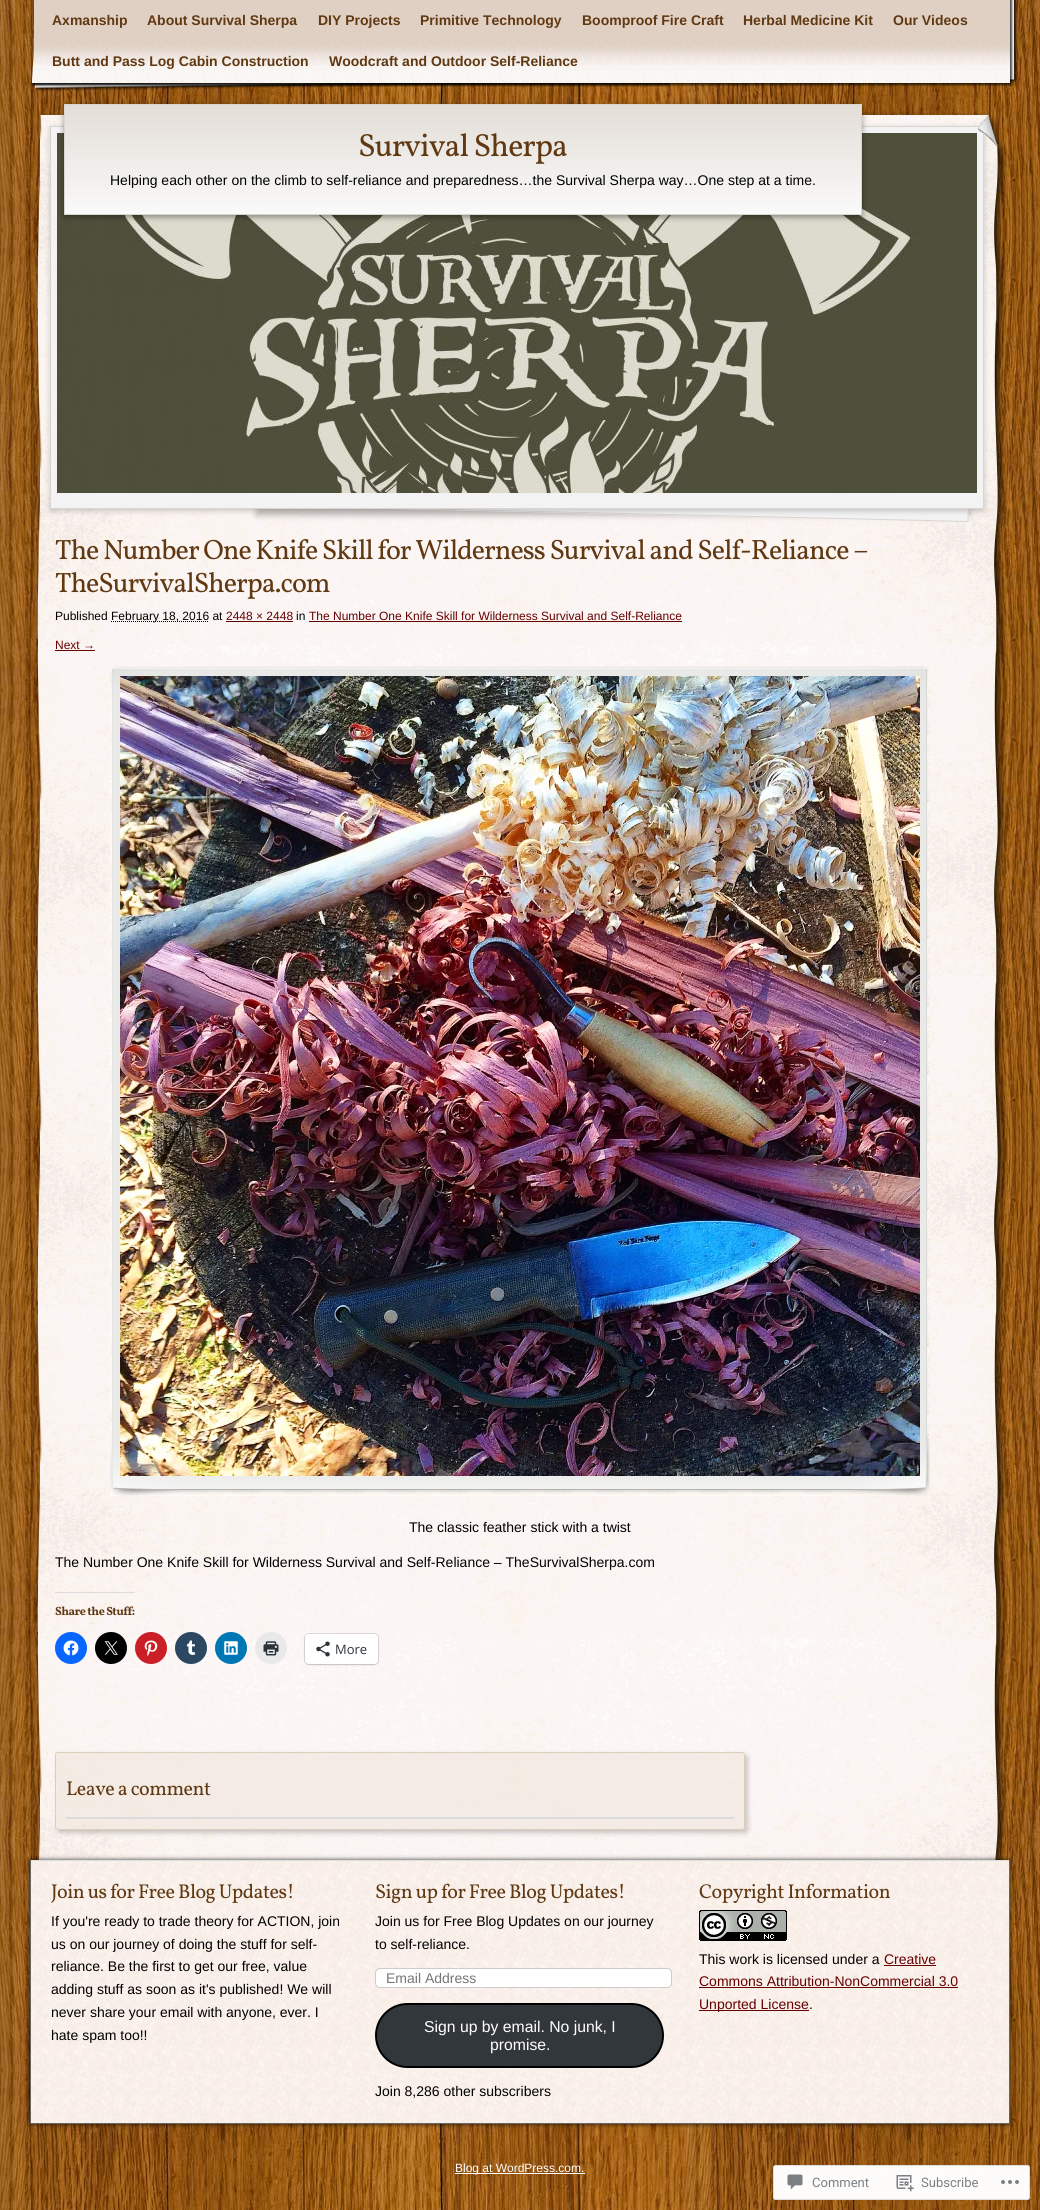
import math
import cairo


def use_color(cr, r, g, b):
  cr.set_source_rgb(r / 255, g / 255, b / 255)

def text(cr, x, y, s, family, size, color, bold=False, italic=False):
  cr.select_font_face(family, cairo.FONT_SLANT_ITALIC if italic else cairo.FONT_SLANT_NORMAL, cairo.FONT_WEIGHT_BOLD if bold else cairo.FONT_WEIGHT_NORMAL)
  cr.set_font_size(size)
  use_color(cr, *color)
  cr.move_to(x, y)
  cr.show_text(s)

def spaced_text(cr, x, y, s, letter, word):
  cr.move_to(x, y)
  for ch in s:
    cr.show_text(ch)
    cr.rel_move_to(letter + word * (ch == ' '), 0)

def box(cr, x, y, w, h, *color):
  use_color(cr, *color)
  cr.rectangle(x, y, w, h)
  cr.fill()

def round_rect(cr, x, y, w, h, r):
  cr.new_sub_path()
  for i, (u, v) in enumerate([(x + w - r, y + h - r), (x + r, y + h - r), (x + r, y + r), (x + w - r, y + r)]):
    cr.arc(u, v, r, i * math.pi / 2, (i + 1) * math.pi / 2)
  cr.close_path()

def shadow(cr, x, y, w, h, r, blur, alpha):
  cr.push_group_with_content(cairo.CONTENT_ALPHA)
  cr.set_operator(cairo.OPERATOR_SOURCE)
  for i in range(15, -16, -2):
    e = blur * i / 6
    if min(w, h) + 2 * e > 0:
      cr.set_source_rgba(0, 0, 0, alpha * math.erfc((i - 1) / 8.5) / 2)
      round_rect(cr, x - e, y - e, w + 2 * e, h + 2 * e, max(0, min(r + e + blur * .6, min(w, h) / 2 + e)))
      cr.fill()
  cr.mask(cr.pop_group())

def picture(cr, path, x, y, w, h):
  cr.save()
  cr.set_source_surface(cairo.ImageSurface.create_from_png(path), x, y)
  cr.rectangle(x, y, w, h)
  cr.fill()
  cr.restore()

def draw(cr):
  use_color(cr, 255, 255, 255)
  cr.paint()
  picture(cr, "img_01.png", 0, 0, 1040, 2210)
  picture(cr, "img_02.png", 0, 0, 1040, 2124)
  picture(cr, "img_03.png", 30, 39, 639, 53)
  picture(cr, "img_04.png", 34, 0, 976, 87)
  picture(cr, "img_05.png", 1010, 0, 8, 87)
  picture(cr, "img_06.png", 38, 112, 969, 38)
  picture(cr, "img_09.png", 35, 150, 973, 1710)
  use_color(cr, 0, 0, 0)
  shadow(cr, 256, 400, 714, 116, 0, 3, 0.2)
  use_color(cr, 243, 243, 243)
  cr.new_path()
  cr.move_to(257, 390)
  cr.line_to(971, 406)
  cr.line_to(969, 522)
  cr.line_to(255, 506)
  cr.close_path()
  cr.fill()
  cr.new_path()
  cr.move_to(258, 390)
  cr.line_to(970.5, 406.5)
  cr.line_to(968, 521.5)
  cr.line_to(255.5, 505)
  cr.close_path()
  use_color(cr, 217, 213, 211)
  cr.set_line_width(1)
  cr.stroke()
  use_color(cr, 0, 0, 0)
  shadow(cr, 50, 128, 934, 383, 0, 3, 0.2)
  use_color(cr, 243, 243, 243)
  cr.rectangle(50.5, 126.5, 933, 382)
  cr.fill_preserve()
  use_color(cr, 217, 213, 211)
  cr.stroke()
  picture(cr, "img_07.png", 978, 115, 25, 32)
  picture(cr, "img_08.png", 57, 133, 920, 360)
  use_color(cr, 0, 0, 0)
  shadow(cr, 64, 106, 798, 111, 0, 3, 0.4)
  gradient = cairo.LinearGradient(463, 105, 463, 214)
  gradient.add_color_stop_rgba(0, 0.89, 0.867, 0.843, 1)
  gradient.add_color_stop_rgba(1, 0.98, 0.98, 0.98, 1)
  cr.set_source(gradient)
  cr.rectangle(65, 105, 796, 109)
  cr.fill()
  cr.rectangle(64.5, 104.5, 797, 110)
  use_color(cr, 217, 213, 211)
  cr.stroke()
  cr.new_path()
  cr.move_to(111, 621.5)
  cr.line_to(209, 621.5)
  use_color(cr, 0, 0, 0)
  cr.set_dash([1, 1])
  cr.stroke()
  box(cr, 226, 621, 67, 1, 102, 0, 0)
  box(cr, 309, 621, 373, 1, 102, 0, 0)
  box(cr, 55, 650, 40, 1, 102, 0, 0)
  picture(cr, "img_10.png", 110, 666, 820, 830)
  box(cr, 55, 1592, 80, 1, 220, 220, 222)
  use_color(cr, 8, 102, 255)
  cr.arc(71, 1648, 16, 0, 2 * math.pi)
  cr.fill()
  picture(cr, "img_11.png", 63, 1640, 16, 16)
  use_color(cr, 0, 0, 0)
  cr.arc(111, 1648, 16, 0, 2 * math.pi)
  cr.fill()
  picture(cr, "img_12.png", 104, 1641, 14, 14)
  use_color(cr, 202, 31, 39)
  cr.arc(151, 1648, 16, 0, 2 * math.pi)
  cr.fill()
  picture(cr, "img_13.png", 144, 1640, 14, 16)
  use_color(cr, 44, 71, 98)
  cr.arc(191, 1648, 16, 0, 2 * math.pi)
  cr.fill()
  picture(cr, "img_14.png", 186, 1640, 10, 15)
  use_color(cr, 0, 119, 181)
  cr.arc(231, 1648, 16, 0, 2 * math.pi)
  cr.fill()
  picture(cr, "img_15.png", 224, 1641, 14, 14)
  use_color(cr, 233, 233, 233)
  cr.arc(271, 1648, 16, 0, 2 * math.pi)
  cr.fill()
  picture(cr, "img_16.png", 263, 1641, 16, 15)
  round_rect(cr, 304.5, 1633.5, 74, 31, 4.5)
  cr.set_source_rgba(0, 0, 0, 0.12)
  cr.set_dash([])
  cr.stroke()
  use_color(cr, 0, 0, 0)
  shadow(cr, 305, 1635, 73, 30, 4, 1, 0.12)
  use_color(cr, 255, 255, 255)
  round_rect(cr, 305, 1634, 73, 30, 4)
  cr.fill()
  picture(cr, "img_17.png", 316, 1641, 14, 16)
  cr.save()
  cr.set_fill_rule(cairo.FILL_RULE_EVEN_ODD)
  cr.new_path()
  cr.move_to(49, 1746)
  cr.line_to(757, 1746)
  cr.line_to(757, 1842)
  cr.line_to(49, 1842)
  cr.close_path()
  cr.move_to(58, 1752)
  cr.line_to(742, 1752)
  cr.curve_to(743.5, 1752, 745, 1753.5, 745, 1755)
  cr.line_to(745, 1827)
  cr.curve_to(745, 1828.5, 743.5, 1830, 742, 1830)
  cr.line_to(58, 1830)
  cr.curve_to(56.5, 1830, 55, 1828.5, 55, 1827)
  cr.line_to(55, 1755)
  cr.curve_to(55, 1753.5, 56.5, 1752, 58, 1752)
  cr.close_path()
  cr.clip()
  use_color(cr, 0, 0, 0)
  shadow(cr, 58, 1755, 690, 78, 3, 2.5, 0.2)
  cr.restore()
  cr.set_source_rgba(0.937, 0.89, 0.847, 0.5)
  round_rect(cr, 55.5, 1752.5, 689, 77, 2.5)
  cr.fill_preserve()
  use_color(cr, 218, 207, 186)
  cr.stroke()
  box(cr, 66, 1817, 668, 2, 220, 220, 222)
  use_color(cr, 0, 0, 0)
  shadow(cr, 30, 1860, 980, 264, 0, 2.5, 0.8)
  picture(cr, "img_18.png", 31, 1861, 978, 262)
  box(cr, 30, 1860, 980, 1, 221, 221, 221)
  box(cr, 1009, 1860, 1, 264, 102, 102, 102)
  box(cr, 30, 2123, 980, 1, 102, 102, 102)
  box(cr, 30, 1860, 1, 264, 102, 102, 102)
  use_color(cr, 255, 255, 255)
  round_rect(cr, 375.5, 1968.5, 296, 19, 4.5)
  cr.fill_preserve()
  use_color(cr, 204, 204, 204)
  cr.stroke()
  use_color(cr, 50, 55, 60)
  round_rect(cr, 376, 2004, 287, 63, 31.5)
  cr.fill_preserve()
  use_color(cr, 0, 0, 0)
  cr.set_line_width(2)
  cr.stroke()
  picture(cr, "img_19.png", 699, 1910, 88, 31)
  box(cr, 884, 1965, 52, 1, 102, 0, 0)
  box(cr, 699, 1987, 259, 1, 102, 0, 0)
  box(cr, 699, 2010, 110, 1, 102, 0, 0)
  picture(cr, "img_20.png", 0, 2124, 1040, 86)
  box(cr, 455, 2173, 130, 1, 255, 255, 255)
  cr.set_source_rgba(1, 1, 1, 0.98)
  round_rect(cr, 773, 2165, 257, 35, 3)
  cr.fill()
  round_rect(cr, 773.5, 2165.5, 256, 34, 2.5)
  cr.set_source_rgba(0.863, 0.863, 0.871, 0.98)
  cr.set_line_width(1)
  cr.stroke()
  picture(cr, "img_21.png", 787, 2174, 16, 16)
  picture(cr, "img_22.png", 896, 2175, 18, 17)
  picture(cr, "img_23.png", 1001, 2180, 18, 4)
  text(cr, 52, 25, "Axmanship", "Liberation Sans", 14, (96, 57, 19), bold=True)
  text(cr, 147, 25, "About Survival Sherpa", "Liberation Sans", 14, (96, 57, 19), bold=True)
  text(cr, 318, 25, "DIY Projects", "Liberation Sans", 14, (96, 57, 19), bold=True)
  text(cr, 420, 25, "Primitive Technology", "Liberation Sans", 14, (96, 57, 19), bold=True)
  text(cr, 582, 25, "Boomproof Fire Craft", "Liberation Sans", 14, (96, 57, 19), bold=True)
  text(cr, 743, 25, "Herbal Medicine Kit", "Liberation Sans", 14, (96, 57, 19), bold=True)
  text(cr, 893, 25, "Our Videos", "Liberation Sans", 14, (96, 57, 19), bold=True)
  text(cr, 52, 66, "Butt and Pass Log Cabin Construction", "Liberation Sans", 14, (96, 57, 19), bold=True)
  text(cr, 329, 66, "Woodcraft and Outdoor Self-Reliance", "Liberation Sans", 14, (96, 57, 19), bold=True)
  cr.select_font_face("Vollkorn")
  cr.set_font_size(32)
  spaced_text(cr, 358, 156, "Survival Sherpa", -1, 0)
  text(cr, 110, 185, "Helping each other on the climb to self-reliance and preparedness…the Survival Sherpa way…One step at a time.", "Liberation Sans", 14, (0, 0, 0))
  cr.select_font_face("Vollkorn")
  cr.set_font_size(28)
  use_color(cr, 96, 57, 19)
  spaced_text(cr, 55, 559, "The Number One Knife Skill for Wilderness Survival and Self-Reliance –", -1, 0)
  spaced_text(cr, 55, 592, "TheSurvivalSherpa.com", -1, 0)
  text(cr, 55, 620, "Published", "Liberation Sans", 12, (0, 0, 0))
  text(cr, 111, 620, "February 18, 2016 at", "Liberation Sans", 12, (0, 0, 0))
  text(cr, 226, 620, "2448 × 2448", "Liberation Sans", 12, (102, 0, 0))
  text(cr, 296, 620, "in", "Liberation Sans", 12, (0, 0, 0))
  text(cr, 309, 620, "The Number One Knife Skill for Wilderness Survival and Self-Reliance", "Liberation Sans", 12, (102, 0, 0))
  text(cr, 55, 649, "Next →", "Liberation Sans", 12, (102, 0, 0))
  text(cr, 409, 1532, "The classic feather stick with a twist", "Liberation Sans", 14, (0, 0, 0))
  text(cr, 55, 1567, "The Number One Knife Skill for Wilderness Survival and Self-Reliance – TheSurvivalSherpa.com", "Liberation Sans", 14, (0, 0, 0))
  cr.select_font_face("Vollkorn", cairo.FONT_SLANT_NORMAL, cairo.FONT_WEIGHT_BOLD)
  cr.set_font_size(12)
  use_color(cr, 96, 57, 19)
  spaced_text(cr, 55, 1615, "Share the Stuff:", -0.5, 0)
  text(cr, 335, 1654, "More", "Open Sans", 13, (44, 51, 56))
  cr.select_font_face("Vollkorn")
  cr.set_font_size(20)
  use_color(cr, 96, 57, 19)
  spaced_text(cr, 66, 1795, "Leave a comment", -0.5, 0)
  spaced_text(cr, 51, 1898, "Join us for Free Blog Updates!", -0.5, 0)
  text(cr, 51, 1926, "If you're ready to trade theory for ACTION, join", "Liberation Sans", 14, (0, 0, 0))
  text(cr, 51, 1949, "us on our journey of doing the stuff for self-", "Liberation Sans", 14, (0, 0, 0))
  text(cr, 51, 1971, "reliance. Be the first to get our free, value", "Liberation Sans", 14, (0, 0, 0))
  text(cr, 51, 1994, "adding stuff as soon as it's published! We will", "Liberation Sans", 14, (0, 0, 0))
  text(cr, 51, 2017, "never share your email with anyone, ever. I", "Liberation Sans", 14, (0, 0, 0))
  text(cr, 51, 2040, "hate spam too!!", "Liberation Sans", 14, (0, 0, 0))
  cr.select_font_face("Vollkorn")
  cr.set_font_size(20)
  use_color(cr, 96, 57, 19)
  spaced_text(cr, 375, 1898, "Sign up for Free Blog Updates!", -0.5, 0)
  text(cr, 375, 1926, "Join us for Free Blog Updates on our journey", "Liberation Sans", 14, (0, 0, 0))
  text(cr, 375, 1949, "to self-reliance.", "Liberation Sans", 14, (0, 0, 0))
  text(cr, 386, 1983, "Email Address", "Liberation Sans", 14, (117, 117, 117))
  text(cr, 424, 2032, "Sign up by email. No junk, I", "Liberation Sans", 15.75, (255, 255, 255))
  text(cr, 490, 2050, "promise.", "Liberation Sans", 15.75, (255, 255, 255))
  text(cr, 375, 2096, "Join 8,286 other subscribers", "Liberation Sans", 14, (0, 0, 0))
  cr.select_font_face("Vollkorn")
  cr.set_font_size(20)
  use_color(cr, 96, 57, 19)
  spaced_text(cr, 699, 1898, "Copyright Information", -0.5, 0)
  text(cr, 699, 1964, "This work is licensed under a", "Liberation Sans", 14, (0, 0, 0))
  text(cr, 884, 1964, "Creative", "Liberation Sans", 14, (102, 0, 0))
  text(cr, 699, 1986, "Commons Attribution-NonCommercial 3.0", "Liberation Sans", 14, (102, 0, 0))
  text(cr, 699, 2009, "Unported License", "Liberation Sans", 14, (102, 0, 0))
  text(cr, 809, 2009, ".", "Liberation Sans", 14, (0, 0, 0))
  text(cr, 455, 2172, "Blog at WordPress.com.", "Liberation Sans", 12, (255, 255, 255))
  text(cr, 812, 2187, "Comment", "Roboto", 13, (123, 127, 132))
  text(cr, 921, 2187, "Subscribe", "Roboto", 13, (123, 127, 132))


surface = cairo.ImageSurface(cairo.FORMAT_RGB24, 1040, 2210)
cr = cairo.Context(surface)
options = cairo.FontOptions()
options.set_hint_metrics(cairo.HINT_METRICS_OFF)
options.set_hint_style(cairo.HINT_STYLE_NONE)
cr.set_font_options(options)
cr.set_miter_limit(4)
draw(cr)
surface.write_to_png("out.png")
